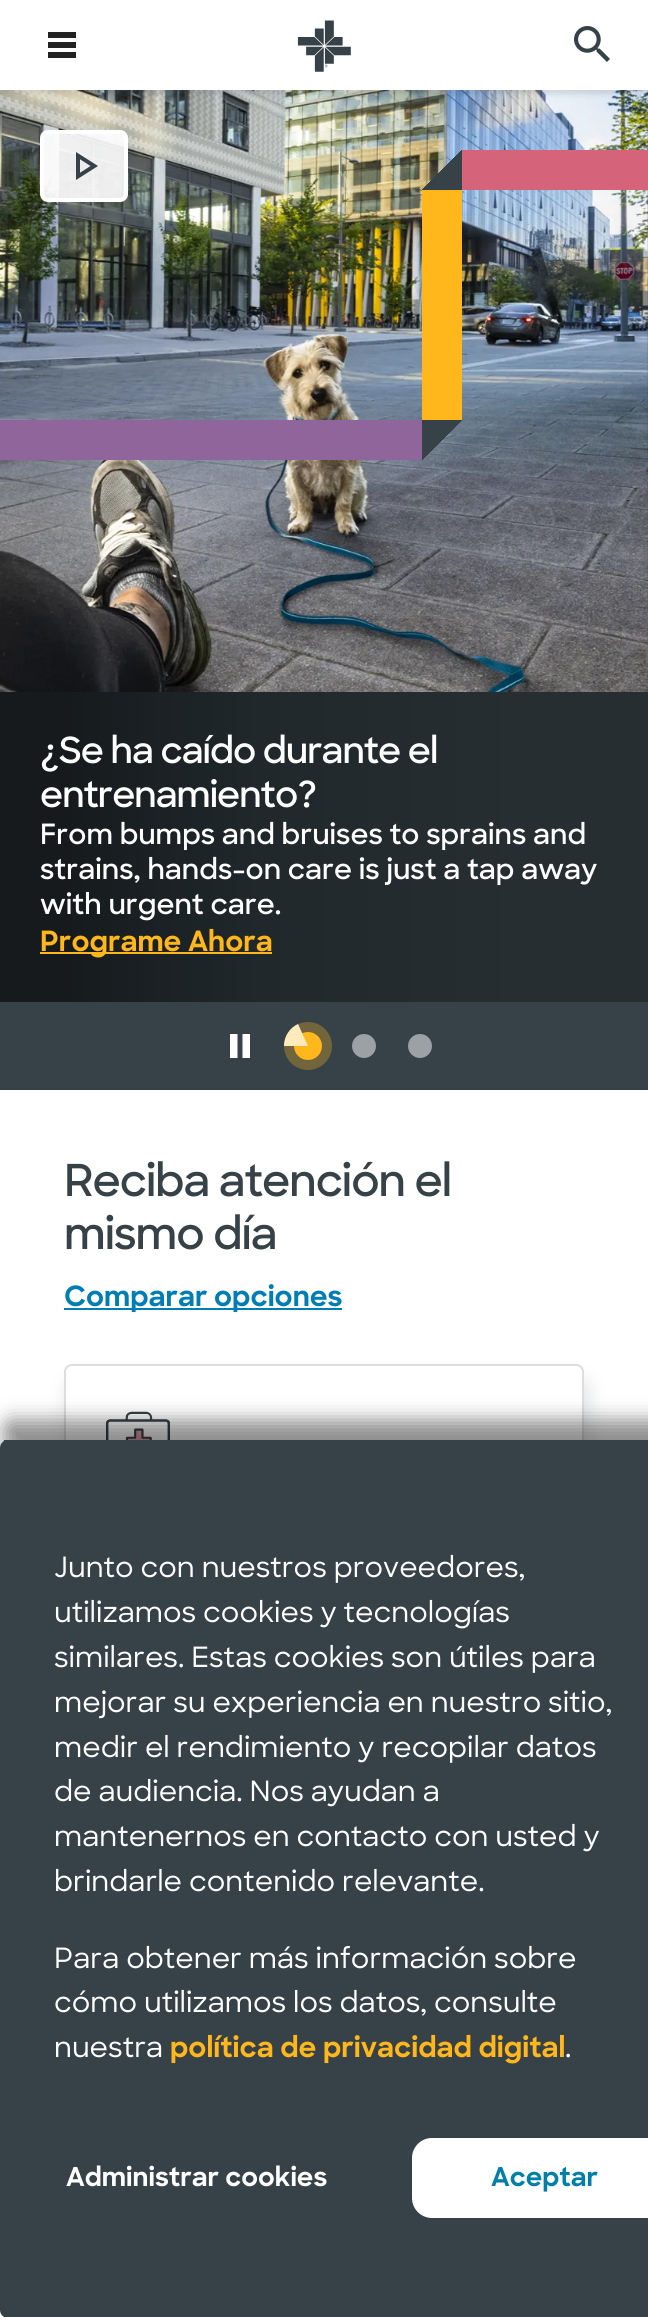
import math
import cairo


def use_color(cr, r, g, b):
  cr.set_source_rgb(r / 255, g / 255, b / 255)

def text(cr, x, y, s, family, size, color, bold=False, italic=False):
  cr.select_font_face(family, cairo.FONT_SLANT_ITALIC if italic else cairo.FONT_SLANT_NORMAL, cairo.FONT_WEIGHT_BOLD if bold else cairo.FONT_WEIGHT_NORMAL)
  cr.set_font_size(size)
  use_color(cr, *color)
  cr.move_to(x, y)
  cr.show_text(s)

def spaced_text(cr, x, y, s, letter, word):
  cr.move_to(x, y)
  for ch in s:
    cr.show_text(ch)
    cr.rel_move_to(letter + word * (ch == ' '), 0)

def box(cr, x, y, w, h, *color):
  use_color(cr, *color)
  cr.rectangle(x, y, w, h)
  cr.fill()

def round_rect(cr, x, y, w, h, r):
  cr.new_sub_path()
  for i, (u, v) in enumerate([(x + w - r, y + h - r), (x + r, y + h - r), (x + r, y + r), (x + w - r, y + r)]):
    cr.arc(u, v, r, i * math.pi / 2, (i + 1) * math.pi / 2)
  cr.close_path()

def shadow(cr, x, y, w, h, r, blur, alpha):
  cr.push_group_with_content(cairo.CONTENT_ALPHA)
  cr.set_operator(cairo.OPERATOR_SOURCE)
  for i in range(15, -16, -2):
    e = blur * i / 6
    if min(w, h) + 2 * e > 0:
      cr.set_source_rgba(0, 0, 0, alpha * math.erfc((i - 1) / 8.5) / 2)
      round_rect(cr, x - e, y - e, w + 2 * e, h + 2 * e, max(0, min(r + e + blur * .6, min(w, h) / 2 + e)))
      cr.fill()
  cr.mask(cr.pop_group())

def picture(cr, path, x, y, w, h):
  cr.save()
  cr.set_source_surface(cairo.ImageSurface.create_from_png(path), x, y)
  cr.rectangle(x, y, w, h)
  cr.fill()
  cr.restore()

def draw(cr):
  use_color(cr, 255, 255, 255)
  cr.paint()
  box(cr, 0, 90, 648, 1000, 54, 66, 72)
  picture(cr, "img_03.png", 0, 90, 648, 602)
  use_color(cr, 0, 0, 0)
  shadow(cr, -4, -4, 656, 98, 0, 3, 0.11)
  box(cr, 0, 0, 648, 90, 255, 255, 255)
  box(cr, 48, 42, 28, 6, 34, 34, 34)
  box(cr, 48, 32, 28, 6, 34, 34, 34)
  box(cr, 48, 52, 28, 6, 34, 34, 34)
  picture(cr, "img_01.png", 297, 20, 54, 52)
  picture(cr, "img_02.png", 574, 26, 36, 36)
  gradient = cairo.LinearGradient(462, 190, 422, 150)
  gradient.add_color_stop_rgba(0, 0.212, 0.259, 0.282, 1)
  gradient.add_color_stop_rgba(0.51, 0.212, 0.259, 0.282, 1)
  gradient.add_color_stop_rgba(0.51, 0.212, 0.259, 0.282, 0)
  gradient.add_color_stop_rgba(1, 0, 0, 0, 0)
  cr.set_source(gradient)
  cr.rectangle(422, 150, 40, 40)
  cr.fill()
  box(cr, 422, 190, 40, 230, 255, 183, 27)
  gradient = cairo.LinearGradient(422, 420, 462, 460)
  gradient.add_color_stop_rgba(0, 0.212, 0.259, 0.282, 1)
  gradient.add_color_stop_rgba(0.51, 0.212, 0.259, 0.282, 1)
  gradient.add_color_stop_rgba(0.51, 0.212, 0.259, 0.282, 0)
  gradient.add_color_stop_rgba(1, 0, 0, 0, 0)
  cr.set_source(gradient)
  cr.rectangle(422, 420, 40, 40)
  cr.fill()
  box(cr, 462, 150, 186, 40, 213, 100, 122)
  box(cr, 0, 420, 422, 40, 143, 101, 156)
  cr.set_source_rgba(1, 1, 1, 0.9)
  round_rect(cr, 42, 132, 84, 68, 6)
  cr.fill_preserve()
  use_color(cr, 255, 255, 255)
  cr.set_line_width(4)
  cr.stroke()
  picture(cr, "img_04.png", 76, 152, 22, 28)
  gradient = cairo.LinearGradient(0, 847, 648, 847)
  gradient.add_color_stop_rgba(0.1, 0.086, 0.102, 0.114, 1)
  gradient.add_color_stop_rgba(0.4, 0.125, 0.157, 0.169, 1)
  gradient.add_color_stop_rgba(0.8, 0.149, 0.18, 0.196, 1)
  cr.set_source(gradient)
  cr.rectangle(0, 692, 648, 310)
  cr.fill()
  box(cr, 40, 952, 232, 2, 255, 183, 27)
  picture(cr, "img_05.png", 230, 1034, 20, 24)
  cr.arc(308, 1046, 14, 0, 2 * math.pi)
  cr.fill()
  use_color(cr, 255, 255, 255)
  cr.new_path()
  cr.move_to(308, 1046)
  cr.line_to(284, 1046)
  cr.curve_to(284, 1036.5, 289.5, 1028, 298, 1024)
  cr.close_path()
  cr.fill()
  cr.set_source_rgba(1, 0.718, 0.106, 0.3)
  cr.arc(308, 1046, 24, 0, 2 * math.pi)
  cr.fill()
  use_color(cr, 155, 161, 164)
  cr.arc(364, 1046, 12, 0, 2 * math.pi)
  cr.fill()
  cr.arc(420, 1046, 12, 0, 2 * math.pi)
  cr.fill()
  box(cr, 64, 1308, 278, 2, 0, 126, 180)
  use_color(cr, 58, 68, 85)
  shadow(cr, 68, 1380, 520, 388, 8, 10, 0.15)
  use_color(cr, 255, 255, 255)
  round_rect(cr, 65, 1365, 518, 386, 7)
  cr.fill_preserve()
  use_color(cr, 221, 221, 221)
  cr.set_line_width(2)
  cr.stroke()
  picture(cr, "img_06.png", 106, 1411, 64, 29)
  use_color(cr, 0, 0, 0)
  shadow(cr, 4, 1420, 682, 878, 8, 10, 0.44)
  use_color(cr, 54, 66, 72)
  round_rect(cr, 0, 1440, 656, 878, 8)
  cr.fill()
  box(cr, 4, 1440, 4, 1, 54, 66, 72)
  use_color(cr, 255, 255, 255)
  round_rect(cr, 412, 2138, 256, 80, 20)
  cr.fill()
  cr.select_font_face("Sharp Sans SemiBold")
  cr.set_font_size(36)
  spaced_text(cr, 40, 763, "¿Se ha caído durante el", -1, 0)
  spaced_text(cr, 40, 807, "entrenamiento?", -1, 0)
  text(cr, 40, 844, "From bumps and bruises to sprains and", "Sharp Sans SemiBold", 28, (255, 255, 255))
  text(cr, 40, 879, "strains, hands-on care is just a tap away", "Sharp Sans SemiBold", 28, (255, 255, 255))
  text(cr, 40, 914, "with urgent care.", "Sharp Sans SemiBold", 28, (255, 255, 255))
  text(cr, 40, 951, "Programe Ahora", "Sharp Sans", 28, (255, 183, 27), bold=True)
  cr.select_font_face("Sharp Sans SemiBold")
  cr.set_font_size(44)
  use_color(cr, 54, 66, 72)
  spaced_text(cr, 64, 1196, "Reciba atención el", -1, 0)
  spaced_text(cr, 64, 1249, "mismo día", -1, 0)
  text(cr, 64, 1306, "Comparar opciones", "Sharp Sans", 28, (0, 126, 180), bold=True)
  text(cr, 54, 1577, "Junto con nuestros proveedores,", "Sharp Sans Medium", 28, (255, 255, 255))
  text(cr, 54, 1622, "utilizamos cookies y tecnologías", "Sharp Sans Medium", 28, (255, 255, 255))
  text(cr, 54, 1667, "similares. Estas cookies son útiles para", "Sharp Sans Medium", 28, (255, 255, 255))
  text(cr, 54, 1712, "mejorar su experiencia en nuestro sitio,", "Sharp Sans Medium", 28, (255, 255, 255))
  text(cr, 54, 1757, "medir el rendimiento y recopilar datos", "Sharp Sans Medium", 28, (255, 255, 255))
  text(cr, 54, 1801, "de audiencia. Nos ayudan a", "Sharp Sans Medium", 28, (255, 255, 255))
  text(cr, 54, 1846, "mantenernos en contacto con usted y", "Sharp Sans Medium", 28, (255, 255, 255))
  text(cr, 54, 1891, "brindarle contenido relevante.", "Sharp Sans Medium", 28, (255, 255, 255))
  text(cr, 54, 1968, "Para obtener más información sobre", "Sharp Sans Medium", 28, (255, 255, 255))
  text(cr, 54, 2012, "cómo utilizamos los datos, consulte", "Sharp Sans Medium", 28, (255, 255, 255))
  text(cr, 54, 2057, "nuestra", "Sharp Sans Medium", 28, (255, 255, 255))
  text(cr, 170, 2057, "política de privacidad digital", "Sharp Sans", 28, (255, 183, 27), bold=True)
  text(cr, 565, 2057, ".", "Sharp Sans Medium", 28, (255, 255, 255))
  text(cr, 66, 2186, "Administrar cookies", "Sharp Sans", 26, (255, 255, 255), bold=True)
  text(cr, 491, 2186, "Aceptar", "Sharp Sans", 26, (0, 127, 169), bold=True)


surface = cairo.ImageSurface(cairo.FORMAT_RGB24, 648, 2317)
cr = cairo.Context(surface)
options = cairo.FontOptions()
options.set_hint_metrics(cairo.HINT_METRICS_OFF)
options.set_hint_style(cairo.HINT_STYLE_NONE)
cr.set_font_options(options)
cr.set_miter_limit(4)
draw(cr)
surface.write_to_png("out.png")
